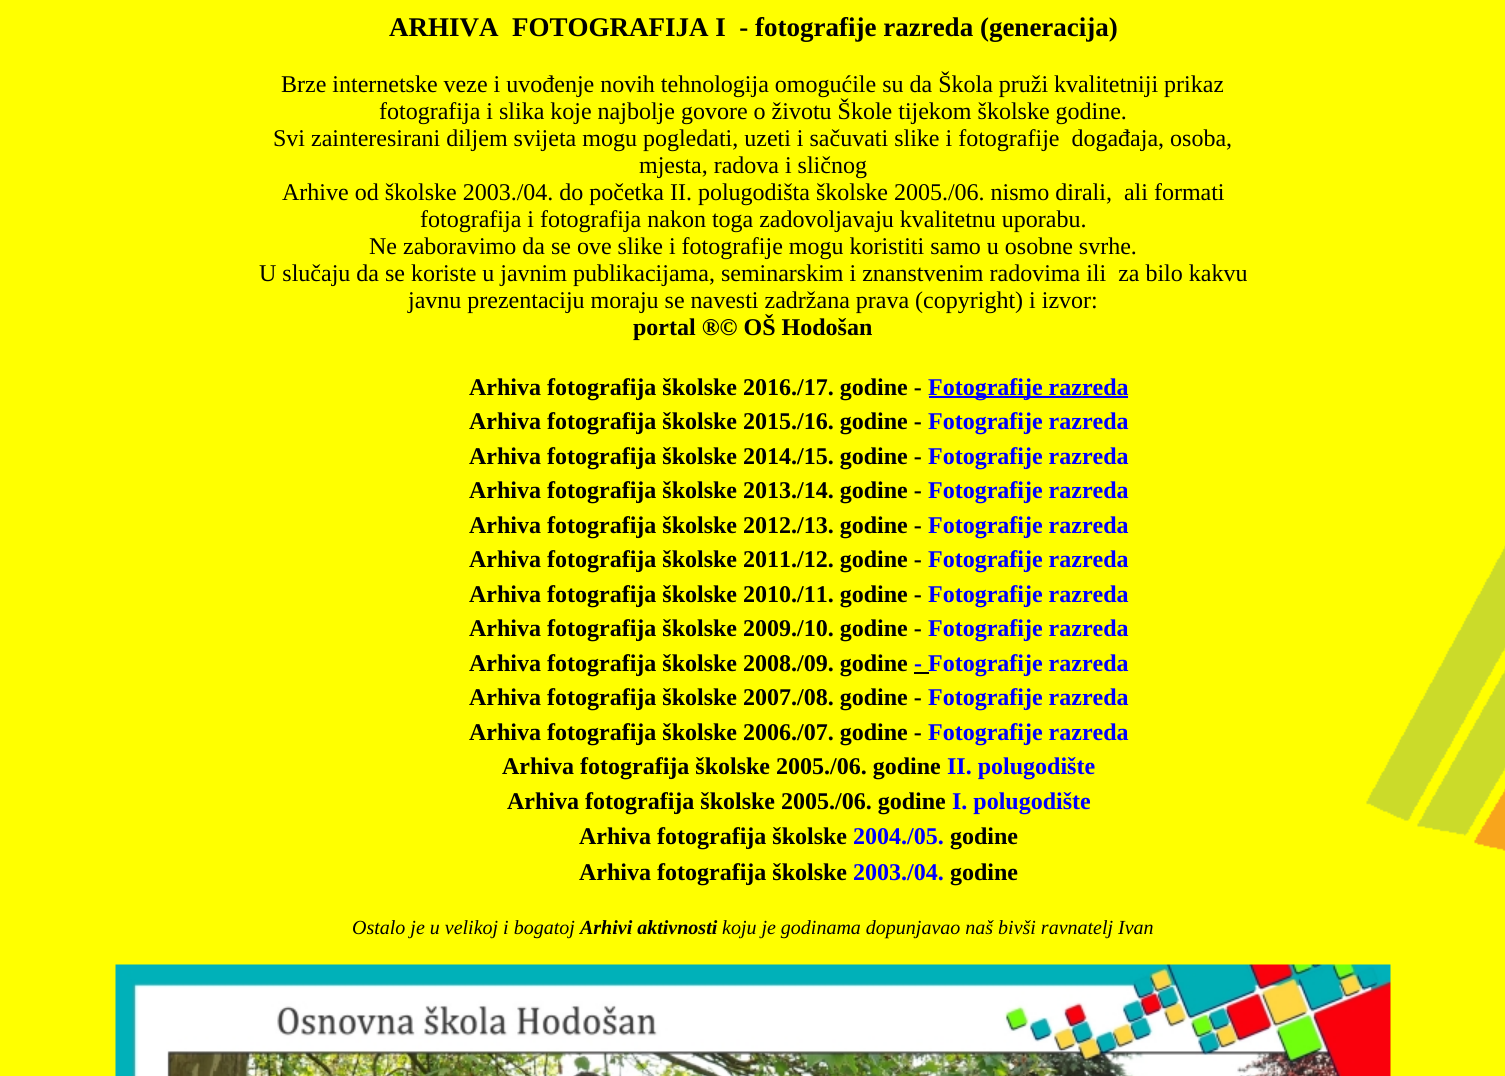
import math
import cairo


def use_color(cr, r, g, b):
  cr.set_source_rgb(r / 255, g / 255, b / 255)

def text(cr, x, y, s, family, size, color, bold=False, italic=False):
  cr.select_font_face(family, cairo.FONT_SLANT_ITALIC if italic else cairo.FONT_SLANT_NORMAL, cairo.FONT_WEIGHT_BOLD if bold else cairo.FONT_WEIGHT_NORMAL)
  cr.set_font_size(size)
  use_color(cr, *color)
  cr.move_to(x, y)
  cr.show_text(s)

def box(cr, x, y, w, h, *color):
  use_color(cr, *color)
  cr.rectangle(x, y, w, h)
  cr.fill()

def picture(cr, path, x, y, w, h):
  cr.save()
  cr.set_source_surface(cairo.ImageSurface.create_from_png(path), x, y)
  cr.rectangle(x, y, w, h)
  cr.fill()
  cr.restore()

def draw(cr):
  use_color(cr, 255, 255, 0)
  cr.paint()
  picture(cr, "img_01.png", 1366, 545, 139, 306)
  box(cr, 929, 396, 199, 2, 0, 0, 255)
  box(cr, 914, 672, 15, 2, 0, 0, 0)
  picture(cr, "img_02.png", 115, 964, 1276, 112)
  text(cr, 389, 36, "ARHIVA  FOTOGRAFIJA I  - fotografije razreda (generacija)", "Liberation Serif", 27, (0, 0, 0), bold=True)
  text(cr, 281, 92, "Brze internetske veze i uvođenje novih tehnologija omogućile su da Škola pruži kvalitetniji prikaz", "Liberation Serif", 24, (0, 0, 0))
  text(cr, 379, 119, "fotografija i slika koje najbolje govore o životu Škole tijekom školske godine.", "Liberation Serif", 24, (0, 0, 0))
  text(cr, 273, 146, "Svi zainteresirani diljem svijeta mogu pogledati, uzeti i sačuvati slike i fotografije  događaja, osoba,", "Liberation Serif", 24, (0, 0, 0))
  text(cr, 639, 173, "mjesta, radova i sličnog", "Liberation Serif", 24, (0, 0, 0))
  text(cr, 282, 200, "Arhive od školske 2003./04. do početka II. polugodišta školske 2005./06. nismo dirali,  ali formati", "Liberation Serif", 24, (0, 0, 0))
  text(cr, 420, 227, "fotografija i fotografija nakon toga zadovoljavaju kvalitetnu uporabu.", "Liberation Serif", 24, (0, 0, 0))
  text(cr, 369, 254, "Ne zaboravimo da se ove slike i fotografije mogu koristiti samo u osobne svrhe.", "Liberation Serif", 24, (0, 0, 0))
  text(cr, 259, 281, "U slučaju da se koriste u javnim publikacijama, seminarskim i znanstvenim radovima ili  za bilo kakvu", "Liberation Serif", 24, (0, 0, 0))
  text(cr, 408, 308, "javnu prezentaciju moraju se navesti zadržana prava (copyright) i izvor:", "Liberation Serif", 24, (0, 0, 0))
  text(cr, 633, 335, "portal ®© OŠ Hodošan", "Liberation Serif", 24, (0, 0, 0), bold=True)
  text(cr, 469, 395, "Arhiva fotografija školske 2016./17. godine -", "Liberation Serif", 24, (0, 0, 0), bold=True)
  text(cr, 928, 395, "Fotografije razreda", "Liberation Serif", 24, (0, 0, 255), bold=True)
  text(cr, 469, 429, "Arhiva fotografija školske 2015./16. godine -", "Liberation Serif", 24, (0, 0, 0), bold=True)
  text(cr, 928, 429, "Fotografije razreda", "Liberation Serif", 24, (0, 0, 255), bold=True)
  text(cr, 469, 464, "Arhiva fotografija školske 2014./15. godine -", "Liberation Serif", 24, (0, 0, 0), bold=True)
  text(cr, 928, 464, "Fotografije razreda", "Liberation Serif", 24, (0, 0, 255), bold=True)
  text(cr, 469, 498, "Arhiva fotografija školske 2013./14. godine -", "Liberation Serif", 24, (0, 0, 0), bold=True)
  text(cr, 928, 498, "Fotografije razreda", "Liberation Serif", 24, (0, 0, 255), bold=True)
  text(cr, 469, 533, "Arhiva fotografija školske 2012./13. godine -", "Liberation Serif", 24, (0, 0, 0), bold=True)
  text(cr, 928, 533, "Fotografije razreda", "Liberation Serif", 24, (0, 0, 255), bold=True)
  text(cr, 469, 567, "Arhiva fotografija školske 2011./12. godine -", "Liberation Serif", 24, (0, 0, 0), bold=True)
  text(cr, 928, 567, "Fotografije razreda", "Liberation Serif", 24, (0, 0, 255), bold=True)
  text(cr, 469, 602, "Arhiva fotografija školske 2010./11. godine -", "Liberation Serif", 24, (0, 0, 0), bold=True)
  text(cr, 928, 602, "Fotografije razreda", "Liberation Serif", 24, (0, 0, 255), bold=True)
  text(cr, 469, 636, "Arhiva fotografija školske 2009./10. godine -", "Liberation Serif", 24, (0, 0, 0), bold=True)
  text(cr, 928, 636, "Fotografije razreda", "Liberation Serif", 24, (0, 0, 255), bold=True)
  text(cr, 469, 671, "Arhiva fotografija školske 2008./09. godine", "Liberation Serif", 24, (0, 0, 0), bold=True)
  text(cr, 914, 671, "- Fotografije razreda", "Liberation Serif", 24, (0, 0, 255), bold=True)
  text(cr, 469, 705, "Arhiva fotografija školske 2007./08. godine -", "Liberation Serif", 24, (0, 0, 0), bold=True)
  text(cr, 928, 705, "Fotografije razreda", "Liberation Serif", 24, (0, 0, 255), bold=True)
  text(cr, 469, 740, "Arhiva fotografija školske 2006./07. godine -", "Liberation Serif", 24, (0, 0, 0), bold=True)
  text(cr, 928, 740, "Fotografije razreda", "Liberation Serif", 24, (0, 0, 255), bold=True)
  text(cr, 502, 774, "Arhiva fotografija školske 2005./06. godine", "Liberation Serif", 24, (0, 0, 0), bold=True)
  text(cr, 947, 774, "II. polugodište", "Liberation Serif", 24, (0, 0, 255), bold=True)
  text(cr, 507, 809, "Arhiva fotografija školske 2005./06. godine", "Liberation Serif", 24, (0, 0, 0), bold=True)
  text(cr, 952, 809, "I. polugodište", "Liberation Serif", 24, (0, 0, 255), bold=True)
  text(cr, 579, 844, "Arhiva fotografija školske", "Liberation Serif", 24, (0, 0, 0), bold=True)
  text(cr, 853, 844, "2004./05.", "Liberation Serif", 24, (0, 0, 255), bold=True)
  text(cr, 950, 844, "godine", "Liberation Serif", 24, (0, 0, 0), bold=True)
  text(cr, 579, 880, "Arhiva fotografija školske", "Liberation Serif", 24, (0, 0, 0), bold=True)
  text(cr, 853, 880, "2003./04.", "Liberation Serif", 24, (0, 0, 255), bold=True)
  text(cr, 950, 880, "godine", "Liberation Serif", 24, (0, 0, 0), bold=True)
  text(cr, 352, 934, "Ostalo je u velikoj i bogatoj", "Liberation Serif", 20, (0, 0, 0), italic=True)
  text(cr, 580, 934, "Arhivi aktivnosti", "Liberation Serif", 20, (0, 0, 0), bold=True, italic=True)
  text(cr, 722, 934, "koju je godinama dopunjavao naš bivši ravnatelj Ivan", "Liberation Serif", 20, (0, 0, 0), italic=True)


surface = cairo.ImageSurface(cairo.FORMAT_RGB24, 1505, 1076)
cr = cairo.Context(surface)
options = cairo.FontOptions()
options.set_hint_metrics(cairo.HINT_METRICS_OFF)
options.set_hint_style(cairo.HINT_STYLE_NONE)
cr.set_font_options(options)
cr.set_miter_limit(4)
draw(cr)
surface.write_to_png("out.png")
